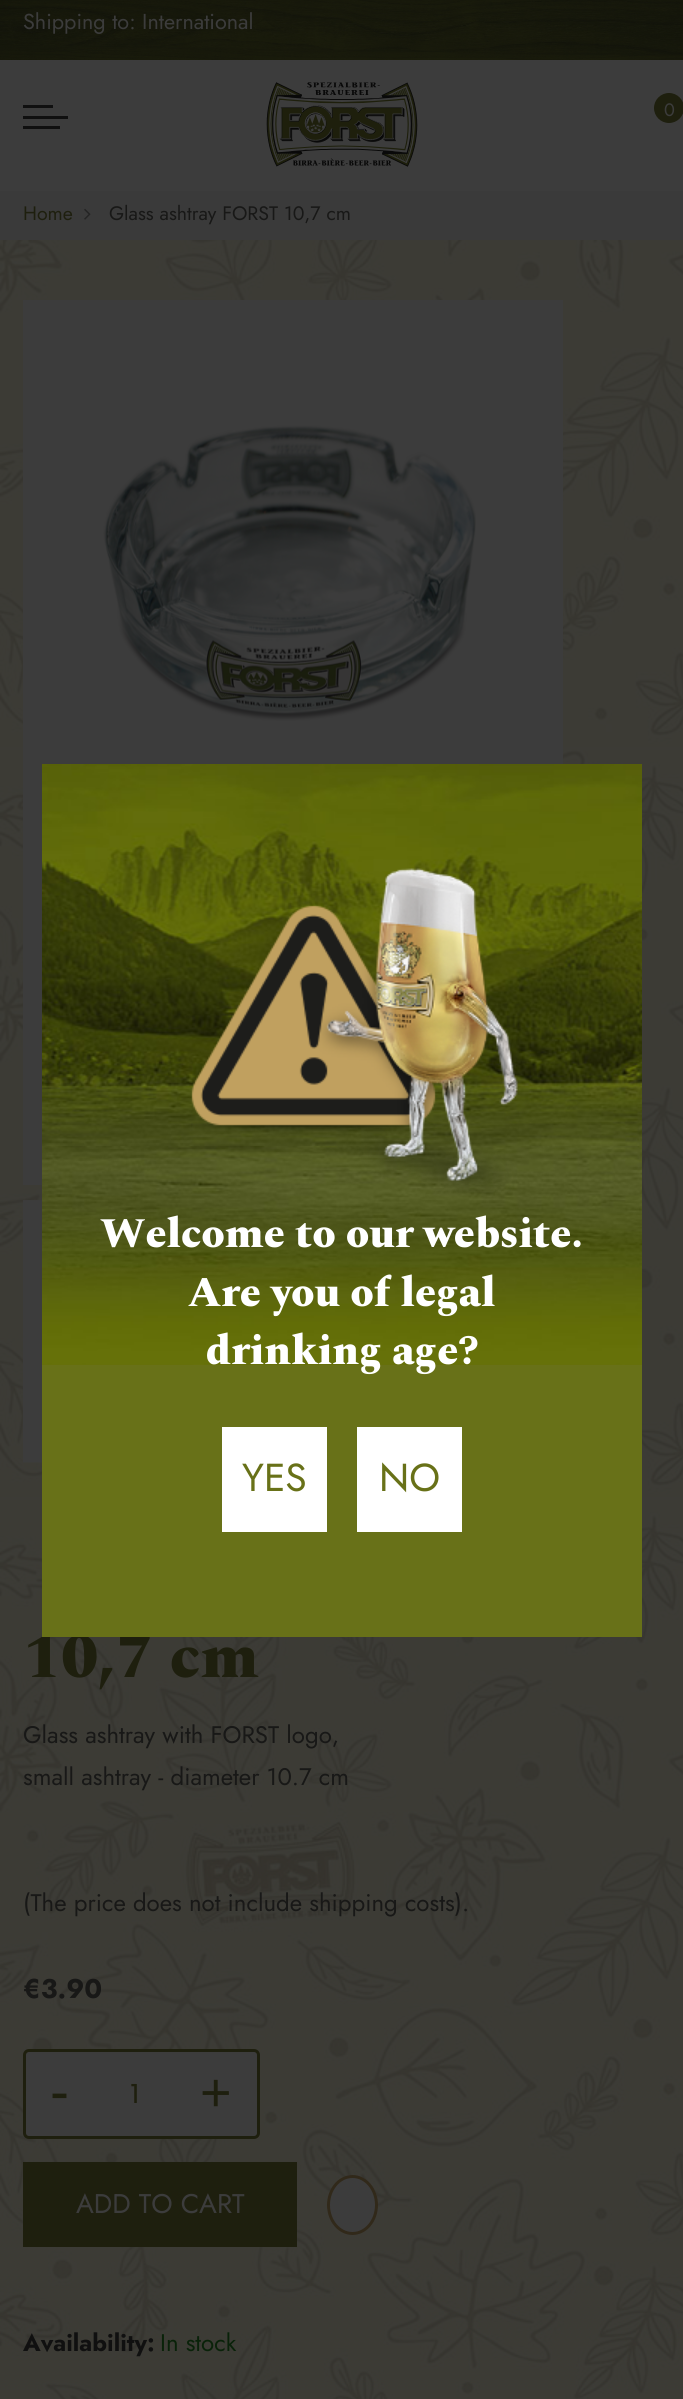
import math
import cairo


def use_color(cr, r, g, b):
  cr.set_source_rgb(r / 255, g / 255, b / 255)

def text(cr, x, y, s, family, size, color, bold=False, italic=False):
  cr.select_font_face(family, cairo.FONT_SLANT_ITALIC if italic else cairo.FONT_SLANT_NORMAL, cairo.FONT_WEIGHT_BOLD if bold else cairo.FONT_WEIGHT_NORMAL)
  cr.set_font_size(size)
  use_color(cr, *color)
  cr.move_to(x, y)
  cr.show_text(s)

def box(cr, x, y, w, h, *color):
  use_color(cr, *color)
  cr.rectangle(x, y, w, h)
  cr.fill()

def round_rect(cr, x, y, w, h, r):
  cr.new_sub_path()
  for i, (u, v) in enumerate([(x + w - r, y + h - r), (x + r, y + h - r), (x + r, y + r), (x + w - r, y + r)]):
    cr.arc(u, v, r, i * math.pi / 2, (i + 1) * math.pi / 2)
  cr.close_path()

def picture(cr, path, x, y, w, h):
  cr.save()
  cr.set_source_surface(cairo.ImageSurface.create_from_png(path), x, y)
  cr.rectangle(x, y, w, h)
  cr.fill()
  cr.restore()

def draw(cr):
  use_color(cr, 255, 255, 255)
  cr.paint()
  picture(cr, "img_01.png", 0, 240, 683, 2159)
  box(cr, 0, 60, 683, 131, 60, 60, 60)
  picture(cr, "img_02.png", 0, 0, 683, 60)
  box(cr, 23, 105, 30, 3, 16, 16, 16)
  box(cr, 23, 116, 45, 3, 16, 16, 16)
  box(cr, 23, 126, 37, 3, 16, 16, 16)
  picture(cr, "img_03.png", 266, 82, 152, 85)
  use_color(cr, 30, 31, 14)
  cr.arc(669, 108, 15, 0, 2 * math.pi)
  cr.fill()
  box(cr, 0, 191, 683, 49, 58, 58, 58)
  picture(cr, "img_04.png", 84, 208, 7, 12)
  box(cr, 23, 300, 540, 885, 60, 60, 60)
  picture(cr, "img_05.png", 103, 425, 373, 296)
  picture(cr, "img_06.png", 23, 1200, 19, 263)
  round_rect(cr, 24.5, 2050.5, 234, 87, 4.5)
  cr.fill_preserve()
  use_color(cr, 30, 31, 14)
  cr.set_line_width(3)
  cr.stroke()
  box(cr, 23, 2162, 274, 85, 30, 31, 14)
  use_color(cr, 60, 60, 60)
  cr.new_path()
  cr.move_to(352.5, 2175)
  cr.curve_to(366.5, 2175, 378, 2188.5, 378, 2205)
  cr.curve_to(378, 2221.5, 366.5, 2235, 352.5, 2235)
  cr.curve_to(338.5, 2235, 327, 2221.5, 327, 2205)
  cr.curve_to(327, 2188.5, 338.5, 2175, 352.5, 2175)
  cr.close_path()
  cr.fill()
  cr.new_path()
  cr.move_to(352.5, 2176.5)
  cr.curve_to(366, 2176.5, 376.5, 2189.5, 376.5, 2205)
  cr.curve_to(376.5, 2220.5, 366, 2233.5, 352.5, 2233.5)
  cr.curve_to(339, 2233.5, 328.5, 2220.5, 328.5, 2205)
  cr.curve_to(328.5, 2189.5, 339, 2176.5, 352.5, 2176.5)
  cr.close_path()
  use_color(cr, 49, 41, 26)
  cr.stroke()
  text(cr, 23, 29, "Shipping to: International", "Jost", 21.6, (60, 60, 60))
  text(cr, 664, 116, "0", "Jost", 18, (60, 60, 60))
  text(cr, 23, 220, "Home", "Jost", 19.5, (30, 31, 14))
  text(cr, 109, 220, "Glass ashtray FORST 10,7 cm", "Jost", 19.5, (24, 24, 23))
  text(cr, 23, 1677, "10,7 cm", "Spectral ExtraBold", 63, (30, 31, 14))
  text(cr, 23, 1743, "Glass ashtray with FORST logo,", "Jost", 24, (24, 24, 23))
  text(cr, 23, 1785, "small ashtray - diameter 10.7 cm", "Jost", 24, (24, 24, 23))
  text(cr, 23, 1911, "(The price does not include shipping costs).", "Jost", 24, (24, 24, 23))
  text(cr, 23, 1998, "€3.90", "Jost", 27, (24, 24, 23), bold=True)
  text(cr, 50, 2111, "-", "Liberation Sans", 57, (30, 31, 14))
  text(cr, 131, 2103, "1", "Poppins", 27, (30, 31, 14))
  text(cr, 200, 2111, "+", "Liberation Sans", 54, (30, 31, 14))
  text(cr, 76, 2213, "ADD TO CART", "Jost", 27, (60, 60, 60))
  text(cr, 23, 2351, "Availability:", "Jost", 24, (16, 16, 16), bold=True)
  text(cr, 160, 2351, "In stock", "Jost", 24, (9, 34, 9))
  box(cr, 42, 1364, 600, 273, 104, 113, 24)
  picture(cr, "img_07.png", 42, 764, 600, 601)
  picture(cr, "img_08.png", 191, 868, 327, 325)
  text(cr, 100, 1247, "Welcome to our website.", "Spectral ExtraBold", 42, (255, 255, 255))
  text(cr, 188, 1306, "Are you of legal", "Spectral ExtraBold", 42, (255, 255, 255))
  text(cr, 206, 1364, "drinking age?", "Spectral ExtraBold", 42, (255, 255, 255))
  box(cr, 222, 1427, 105, 105, 255, 255, 255)
  text(cr, 242, 1491, "YES", "Jost", 39, (104, 113, 24))
  box(cr, 357, 1427, 105, 105, 255, 255, 255)
  text(cr, 379, 1491, "NO", "Jost", 39, (104, 113, 24))


surface = cairo.ImageSurface(cairo.FORMAT_RGB24, 683, 2399)
cr = cairo.Context(surface)
options = cairo.FontOptions()
options.set_hint_metrics(cairo.HINT_METRICS_OFF)
options.set_hint_style(cairo.HINT_STYLE_NONE)
cr.set_font_options(options)
cr.set_miter_limit(4)
draw(cr)
surface.write_to_png("out.png")
